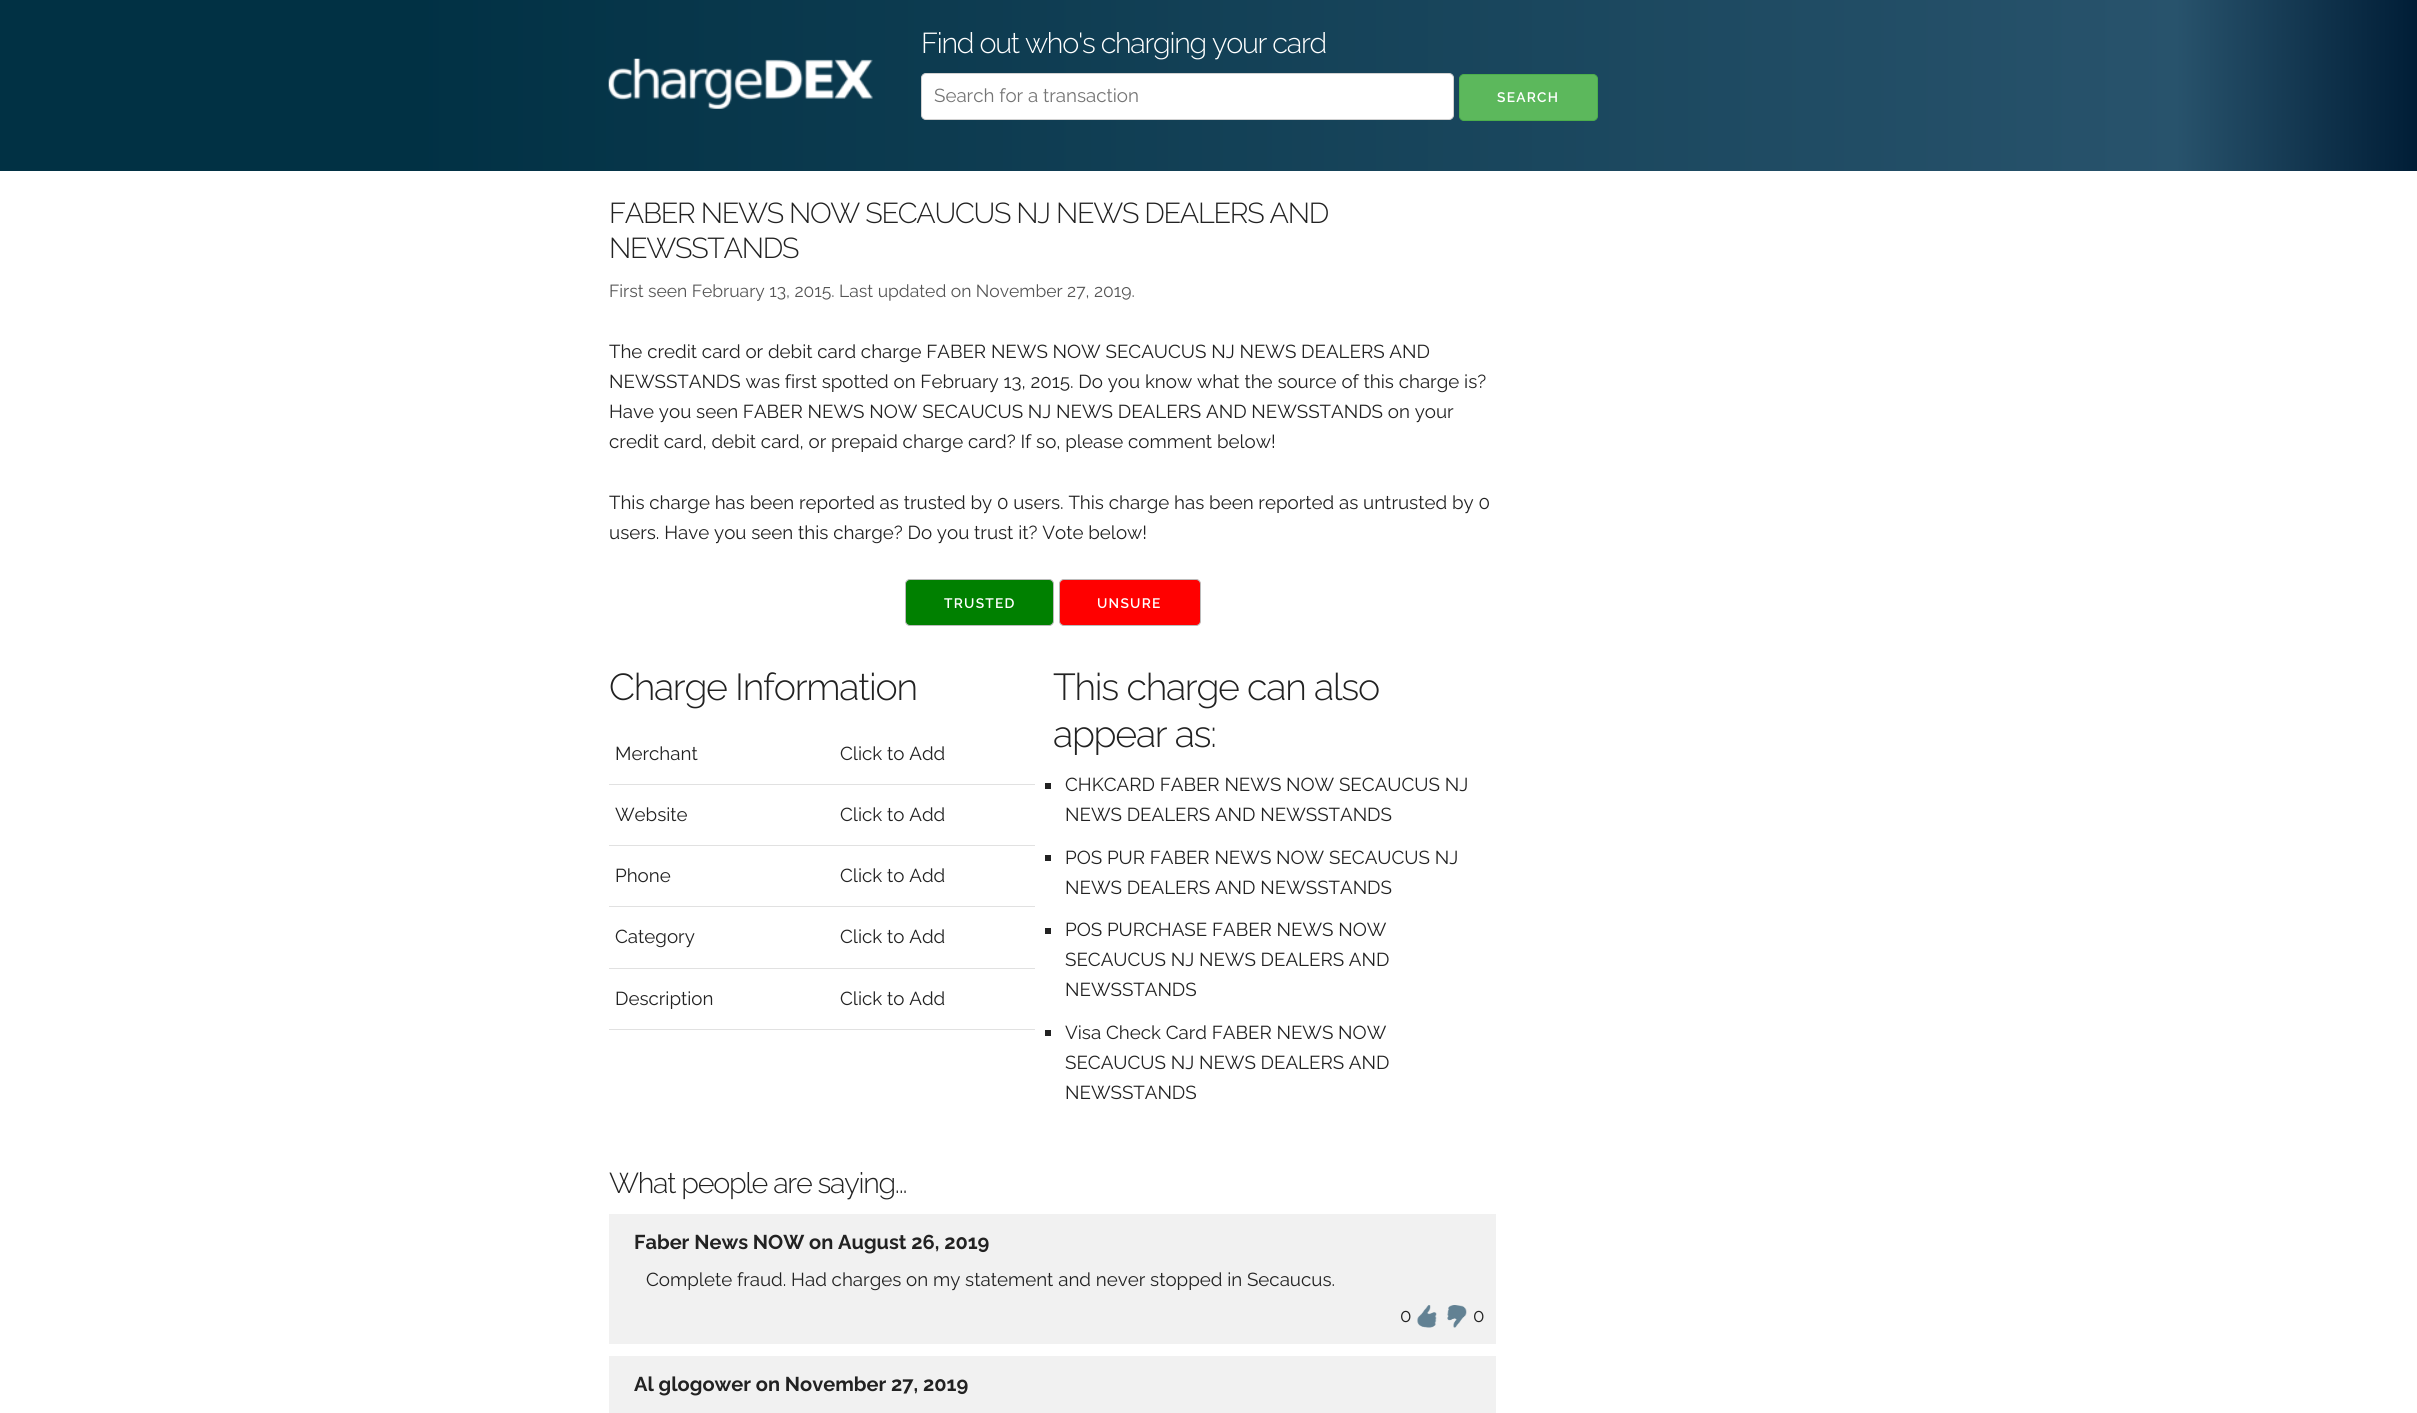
import math
import cairo


def use_color(cr, r, g, b):
  cr.set_source_rgb(r / 255, g / 255, b / 255)

def text(cr, x, y, s, family, size, color, bold=False, italic=False):
  cr.select_font_face(family, cairo.FONT_SLANT_ITALIC if italic else cairo.FONT_SLANT_NORMAL, cairo.FONT_WEIGHT_BOLD if bold else cairo.FONT_WEIGHT_NORMAL)
  cr.set_font_size(size)
  use_color(cr, *color)
  cr.move_to(x, y)
  cr.show_text(s)

def spaced_text(cr, x, y, s, letter, word):
  cr.move_to(x, y)
  for ch in s:
    cr.show_text(ch)
    cr.rel_move_to(letter + word * (ch == ' '), 0)

def box(cr, x, y, w, h, *color):
  use_color(cr, *color)
  cr.rectangle(x, y, w, h)
  cr.fill()

def round_rect(cr, x, y, w, h, r):
  cr.new_sub_path()
  for i, (u, v) in enumerate([(x + w - r, y + h - r), (x + r, y + h - r), (x + r, y + r), (x + w - r, y + r)]):
    cr.arc(u, v, r, i * math.pi / 2, (i + 1) * math.pi / 2)
  cr.close_path()

def picture(cr, path, x, y, w, h):
  cr.save()
  cr.set_source_surface(cairo.ImageSurface.create_from_png(path), x, y)
  cr.rectangle(x, y, w, h)
  cr.fill()
  cr.restore()

def draw(cr):
  use_color(cr, 255, 255, 255)
  cr.paint()
  gradient = cairo.LinearGradient(0, 86, 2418, 86)
  gradient.add_color_stop_rgba(0.17, 0.004, 0.192, 0.267, 1)
  gradient.add_color_stop_rgba(0.9, 0.157, 0.325, 0.424, 1)
  gradient.add_color_stop_rgba(1, 0, 0.114, 0.212, 1)
  cr.set_source(gradient)
  cr.rectangle(0, 0, 2417, 171)
  cr.fill()
  picture(cr, "img_01.png", 608, 58, 265, 51)
  use_color(cr, 255, 255, 255)
  round_rect(cr, 921.5, 73.5, 532, 46, 4.5)
  cr.fill_preserve()
  use_color(cr, 209, 209, 209)
  cr.set_line_width(1)
  cr.stroke()
  use_color(cr, 92, 184, 92)
  round_rect(cr, 1459.5, 74.5, 138, 46, 4.5)
  cr.fill_preserve()
  use_color(cr, 76, 174, 76)
  cr.stroke()
  use_color(cr, 0, 128, 0)
  round_rect(cr, 905.5, 579.5, 148, 46, 4.5)
  cr.fill_preserve()
  use_color(cr, 187, 187, 187)
  cr.stroke()
  use_color(cr, 255, 0, 0)
  round_rect(cr, 1059.5, 579.5, 141, 46, 4.5)
  cr.fill_preserve()
  use_color(cr, 187, 187, 187)
  cr.stroke()
  box(cr, 609, 784, 426, 1, 225, 225, 225)
  box(cr, 609, 845, 426, 1, 225, 225, 225)
  box(cr, 609, 906, 426, 1, 225, 225, 225)
  box(cr, 609, 968, 426, 1, 225, 225, 225)
  box(cr, 609, 1029, 426, 1, 225, 225, 225)
  box(cr, 1045, 783, 6, 6, 34, 34, 34)
  box(cr, 1045, 855, 6, 6, 34, 34, 34)
  box(cr, 1045, 928, 6, 6, 34, 34, 34)
  box(cr, 1045, 1030, 6, 6, 34, 34, 34)
  box(cr, 609, 1214, 887, 130, 241, 241, 241)
  picture(cr, "img_02.png", 1417, 1305, 20, 23)
  picture(cr, "img_03.png", 1447, 1305, 20, 23)
  box(cr, 609, 1356, 887, 57, 241, 241, 241)
  cr.select_font_face("Raleway Light")
  cr.set_font_size(28.75)
  use_color(cr, 255, 255, 255)
  spaced_text(cr, 921, 53, "Find out who's charging your card", -1.25, 0)
  text(cr, 934, 102, "Search for a transaction", "Raleway", 18.75, (117, 117, 117))
  cr.select_font_face("Raleway SemiBold")
  cr.set_font_size(13.75)
  use_color(cr, 255, 255, 255)
  spaced_text(cr, 1497, 102, "SEARCH", 1.25, 0)
  cr.select_font_face("Raleway Light")
  cr.set_font_size(28.75)
  use_color(cr, 34, 34, 34)
  spaced_text(cr, 609, 223, "FABER NEWS NOW SECAUCUS NJ NEWS DEALERS AND", -1.25, 0)
  spaced_text(cr, 609, 258, "NEWSSTANDS", -1.25, 0)
  text(cr, 609, 297, "First seen February 13, 2015. Last updated on November 27, 2019.", "Raleway", 17.5, (85, 85, 85))
  text(cr, 609, 358, "The credit card or debit card charge FABER NEWS NOW SECAUCUS NJ NEWS DEALERS AND", "Raleway", 18.75, (34, 34, 34))
  text(cr, 609, 388, "NEWSSTANDS was first spotted on February 13, 2015. Do you know what the source of this charge is?", "Raleway", 18.75, (34, 34, 34))
  text(cr, 609, 418, "Have you seen FABER NEWS NOW SECAUCUS NJ NEWS DEALERS AND NEWSSTANDS on your", "Raleway", 18.75, (34, 34, 34))
  text(cr, 609, 448, "credit card, debit card, or prepaid charge card? If so, please comment below!", "Raleway", 18.75, (34, 34, 34))
  text(cr, 609, 509, "This charge has been reported as trusted by 0 users. This charge has been reported as untrusted by 0", "Raleway", 18.75, (34, 34, 34))
  text(cr, 609, 539, "users. Have you seen this charge? Do you trust it? Vote below!", "Raleway", 18.75, (34, 34, 34))
  cr.select_font_face("Raleway SemiBold")
  cr.set_font_size(13.75)
  use_color(cr, 255, 255, 255)
  spaced_text(cr, 944, 608, "TRUSTED", 1.25, 0)
  spaced_text(cr, 1097, 608, "UNSURE", 1.25, 0)
  cr.select_font_face("Raleway Light")
  cr.set_font_size(37.5)
  use_color(cr, 34, 34, 34)
  spaced_text(cr, 609, 700, "Charge Information", -1.25, 0)
  text(cr, 615, 760, "Merchant", "Raleway", 18.75, (34, 34, 34))
  text(cr, 840, 760, "Click to Add", "Raleway", 18.75, (34, 34, 34))
  text(cr, 615, 821, "Website", "Raleway", 18.75, (34, 34, 34))
  text(cr, 840, 821, "Click to Add", "Raleway", 18.75, (34, 34, 34))
  text(cr, 615, 882, "Phone", "Raleway", 18.75, (34, 34, 34))
  text(cr, 840, 882, "Click to Add", "Raleway", 18.75, (34, 34, 34))
  text(cr, 615, 943, "Category", "Raleway", 18.75, (34, 34, 34))
  text(cr, 840, 943, "Click to Add", "Raleway", 18.75, (34, 34, 34))
  text(cr, 615, 1005, "Description", "Raleway", 18.75, (34, 34, 34))
  text(cr, 840, 1005, "Click to Add", "Raleway", 18.75, (34, 34, 34))
  cr.select_font_face("Raleway Light")
  cr.set_font_size(37.5)
  spaced_text(cr, 1053, 700, "This charge can also", -1.25, 0)
  spaced_text(cr, 1053, 747, "appear as:", -1.25, 0)
  text(cr, 1065, 791, "CHKCARD FABER NEWS NOW SECAUCUS NJ", "Raleway", 18.75, (34, 34, 34))
  text(cr, 1065, 821, "NEWS DEALERS AND NEWSSTANDS", "Raleway", 18.75, (34, 34, 34))
  text(cr, 1065, 864, "POS PUR FABER NEWS NOW SECAUCUS NJ", "Raleway", 18.75, (34, 34, 34))
  text(cr, 1065, 894, "NEWS DEALERS AND NEWSSTANDS", "Raleway", 18.75, (34, 34, 34))
  text(cr, 1065, 936, "POS PURCHASE FABER NEWS NOW", "Raleway", 18.75, (34, 34, 34))
  text(cr, 1065, 966, "SECAUCUS NJ NEWS DEALERS AND", "Raleway", 18.75, (34, 34, 34))
  text(cr, 1065, 996, "NEWSSTANDS", "Raleway", 18.75, (34, 34, 34))
  text(cr, 1065, 1039, "Visa Check Card FABER NEWS NOW", "Raleway", 18.75, (34, 34, 34))
  text(cr, 1065, 1069, "SECAUCUS NJ NEWS DEALERS AND", "Raleway", 18.75, (34, 34, 34))
  text(cr, 1065, 1099, "NEWSSTANDS", "Raleway", 18.75, (34, 34, 34))
  cr.select_font_face("Raleway Light")
  cr.set_font_size(28.75)
  spaced_text(cr, 609, 1193, "What people are saying...", -1.25, 0)
  text(cr, 634, 1249, "Faber News NOW on August 26, 2019", "Raleway", 20, (34, 34, 34), bold=True)
  text(cr, 646, 1286, "Complete fraud. Had charges on my statement and never stopped in Secaucus.", "Raleway", 18.75, (34, 34, 34))
  text(cr, 1400, 1322, "0", "Raleway", 18.75, (34, 34, 34))
  text(cr, 1473, 1322, "0", "Raleway", 18.75, (34, 34, 34))
  text(cr, 634, 1391, "Al glogower on November 27, 2019", "Raleway", 20, (34, 34, 34), bold=True)


surface = cairo.ImageSurface(cairo.FORMAT_RGB24, 2417, 1413)
cr = cairo.Context(surface)
options = cairo.FontOptions()
options.set_hint_metrics(cairo.HINT_METRICS_OFF)
options.set_hint_style(cairo.HINT_STYLE_NONE)
cr.set_font_options(options)
cr.set_miter_limit(4)
draw(cr)
surface.write_to_png("out.png")
